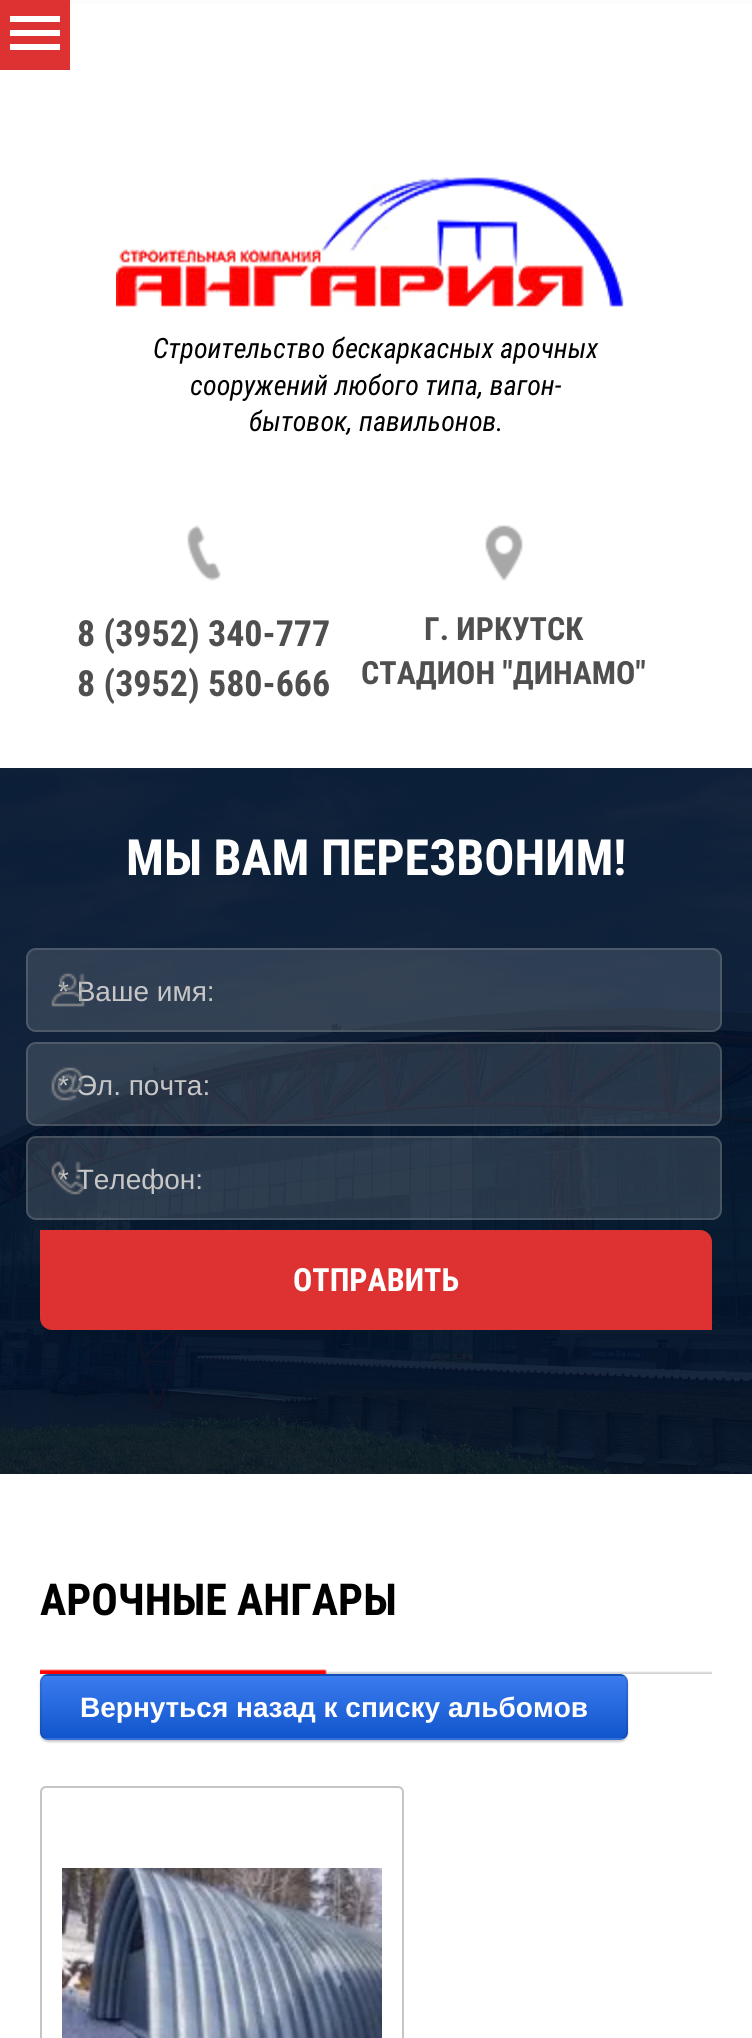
import math
import cairo


def use_color(cr, r, g, b):
  cr.set_source_rgb(r / 255, g / 255, b / 255)

def text(cr, x, y, s, family, size, color, bold=False, italic=False):
  cr.select_font_face(family, cairo.FONT_SLANT_ITALIC if italic else cairo.FONT_SLANT_NORMAL, cairo.FONT_WEIGHT_BOLD if bold else cairo.FONT_WEIGHT_NORMAL)
  cr.set_font_size(size)
  use_color(cr, *color)
  cr.move_to(x, y)
  cr.show_text(s)

def box(cr, x, y, w, h, *color):
  use_color(cr, *color)
  cr.rectangle(x, y, w, h)
  cr.fill()

def round_rect(cr, x, y, w, h, r):
  cr.new_sub_path()
  for i, (u, v) in enumerate([(x + w - r, y + h - r), (x + r, y + h - r), (x + r, y + r), (x + w - r, y + r)]):
    cr.arc(u, v, r, i * math.pi / 2, (i + 1) * math.pi / 2)
  cr.close_path()

def shadow(cr, x, y, w, h, r, blur, alpha):
  cr.push_group_with_content(cairo.CONTENT_ALPHA)
  cr.set_operator(cairo.OPERATOR_SOURCE)
  for i in range(15, -16, -2):
    e = blur * i / 6
    if min(w, h) + 2 * e > 0:
      cr.set_source_rgba(0, 0, 0, alpha * math.erfc((i - 1) / 8.5) / 2)
      round_rect(cr, x - e, y - e, w + 2 * e, h + 2 * e, max(0, min(r + e + blur * .6, min(w, h) / 2 + e)))
      cr.fill()
  cr.mask(cr.pop_group())

def picture(cr, path, x, y, w, h):
  cr.save()
  cr.set_source_surface(cairo.ImageSurface.create_from_png(path), x, y)
  cr.rectangle(x, y, w, h)
  cr.fill()
  cr.restore()

def draw(cr):
  use_color(cr, 255, 255, 255)
  cr.paint()
  box(cr, 0, 0, 70, 70, 222, 49, 49)
  box(cr, 10, 16, 50, 6, 255, 255, 255)
  box(cr, 10, 30, 50, 6, 255, 255, 255)
  box(cr, 10, 44, 50, 6, 255, 255, 255)
  box(cr, 70, 0, 682, 4, 252, 252, 252)
  picture(cr, "img_01.png", 116, 172, 514, 142)
  picture(cr, "img_02.png", 187, 525, 34, 56)
  picture(cr, "img_03.png", 485, 525, 38, 56)
  picture(cr, "img_04.png", 0, 768, 752, 706)
  cr.set_source_rgba(0.008, 0.082, 0.18, 0.4)
  cr.rectangle(0, 768, 752, 622)
  cr.fill()
  cr.set_source_rgba(0.82, 0.82, 0.82, 0.17)
  round_rect(cr, 26, 948, 696, 84, 10)
  cr.fill()
  round_rect(cr, 27, 949, 694, 82, 9)
  cr.set_source_rgba(0.733, 0.733, 0.733, 0.21)
  cr.stroke()
  cr.set_source_rgba(0.82, 0.82, 0.82, 0.17)
  round_rect(cr, 26, 1042, 696, 84, 10)
  cr.fill()
  round_rect(cr, 27, 1043, 694, 82, 9)
  cr.set_source_rgba(0.733, 0.733, 0.733, 0.21)
  cr.stroke()
  cr.set_source_rgba(0.82, 0.82, 0.82, 0.17)
  round_rect(cr, 26, 1136, 696, 84, 10)
  cr.fill()
  round_rect(cr, 27, 1137, 694, 82, 9)
  cr.set_source_rgba(0.733, 0.733, 0.733, 0.21)
  cr.stroke()
  use_color(cr, 222, 49, 49)
  cr.new_path()
  cr.move_to(42, 1232)
  cr.line_to(700, 1232)
  cr.curve_to(705.5, 1232, 710, 1236.5, 710, 1242)
  cr.line_to(710, 1328)
  cr.line_to(52, 1328)
  cr.curve_to(46.5, 1328, 42, 1323.5, 42, 1318)
  cr.close_path()
  cr.fill_preserve()
  cr.set_line_width(4)
  cr.stroke()
  picture(cr, "img_08.png", 40, 1669, 672, 5)
  use_color(cr, 0, 0, 0)
  shadow(cr, 40, 1676, 588, 66, 8, 1, 0.2)
  cr.save()
  round_rect(cr, 40, 1674, 588, 66, 8)
  cr.clip()
  gradient = cairo.LinearGradient(334, 1614, 334, 1676)
  gradient.add_color_stop_rgba(0, 0.231, 0.486, 0.937, 1)
  gradient.add_color_stop_rgba(1, 0.067, 0.333, 0.8, 1)
  cr.set_source(gradient)
  cr.rectangle(40, 1674, 588, 2)
  cr.fill()
  gradient = cairo.LinearGradient(334, 1676, 334, 1738)
  gradient.add_color_stop_rgba(0, 0.231, 0.486, 0.937, 1)
  gradient.add_color_stop_rgba(1, 0.067, 0.333, 0.8, 1)
  cr.set_source(gradient)
  cr.rectangle(40, 1676, 588, 62)
  cr.fill()
  gradient = cairo.LinearGradient(334, 1738, 334, 1800)
  gradient.add_color_stop_rgba(0, 0.231, 0.486, 0.937, 1)
  gradient.add_color_stop_rgba(1, 0.067, 0.333, 0.8, 1)
  cr.set_source(gradient)
  cr.rectangle(40, 1738, 588, 2)
  cr.fill()
  cr.restore()
  round_rect(cr, 41, 1675, 586, 64, 7)
  cr.set_source_rgba(0, 0, 0, 0.1)
  cr.set_line_width(2)
  cr.stroke()
  round_rect(cr, 41, 1787, 362, 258, 5)
  use_color(cr, 197, 197, 197)
  cr.stroke()
  picture(cr, "img_09.png", 62, 1868, 320, 170)
  text(cr, 153, 358, "Строительство бескаркасных арочных", "Roboto Condensed", 28, (0, 0, 0), italic=True)
  text(cr, 190, 395, "сооружений любого типа, вагон-", "Roboto Condensed", 28, (0, 0, 0), italic=True)
  text(cr, 249, 431, "бытовок, павильонов.", "Roboto Condensed", 28, (0, 0, 0), italic=True)
  text(cr, 77, 646, "8 (3952) 340-777", "Roboto Condensed", 36, (79, 79, 79), bold=True)
  text(cr, 77, 696, "8 (3952) 580-666", "Roboto Condensed", 36, (79, 79, 79), bold=True)
  text(cr, 424, 640, "Г. ИРКУТСК", "Roboto Condensed", 32, (79, 79, 79), bold=True)
  text(cr, 361, 684, "СТАДИОН \"ДИНАМО\"", "Roboto Condensed", 32, (79, 79, 79), bold=True)
  text(cr, 126, 875, "МЫ ВАМ ПЕРЕЗВОНИМ!", "Roboto Condensed", 50, (255, 255, 255), bold=True)
  text(cr, 58, 1001, "* Ваше имя:", "Liberation Sans", 28, (199, 199, 199))
  picture(cr, "img_05.png", 51, 973, 34, 34)
  text(cr, 58, 1095, "* Эл. почта:", "Liberation Sans", 28, (199, 199, 199))
  picture(cr, "img_06.png", 51, 1067, 32, 34)
  cr.save()
  cr.rectangle(58, 1162, 654, 32)
  cr.clip()
  text(cr, 58, 1189, "* Телефон:", "Liberation Sans", 28, (199, 199, 199))
  cr.restore()
  picture(cr, "img_07.png", 51, 1161, 34, 34)
  text(cr, 293, 1291, "ОТПРАВИТЬ", "Roboto Condensed", 32, (255, 255, 255), bold=True)
  text(cr, 40, 1615, "АРОЧНЫЕ АНГАРЫ", "Roboto Condensed", 44, (0, 0, 0), bold=True)
  text(cr, 80, 1717, "Вернуться назад к списку альбомов", "Liberation Sans", 28, (255, 255, 255), bold=True)


surface = cairo.ImageSurface(cairo.FORMAT_RGB24, 752, 2038)
cr = cairo.Context(surface)
options = cairo.FontOptions()
options.set_hint_metrics(cairo.HINT_METRICS_OFF)
options.set_hint_style(cairo.HINT_STYLE_NONE)
cr.set_font_options(options)
cr.set_miter_limit(4)
draw(cr)
surface.write_to_png("out.png")
